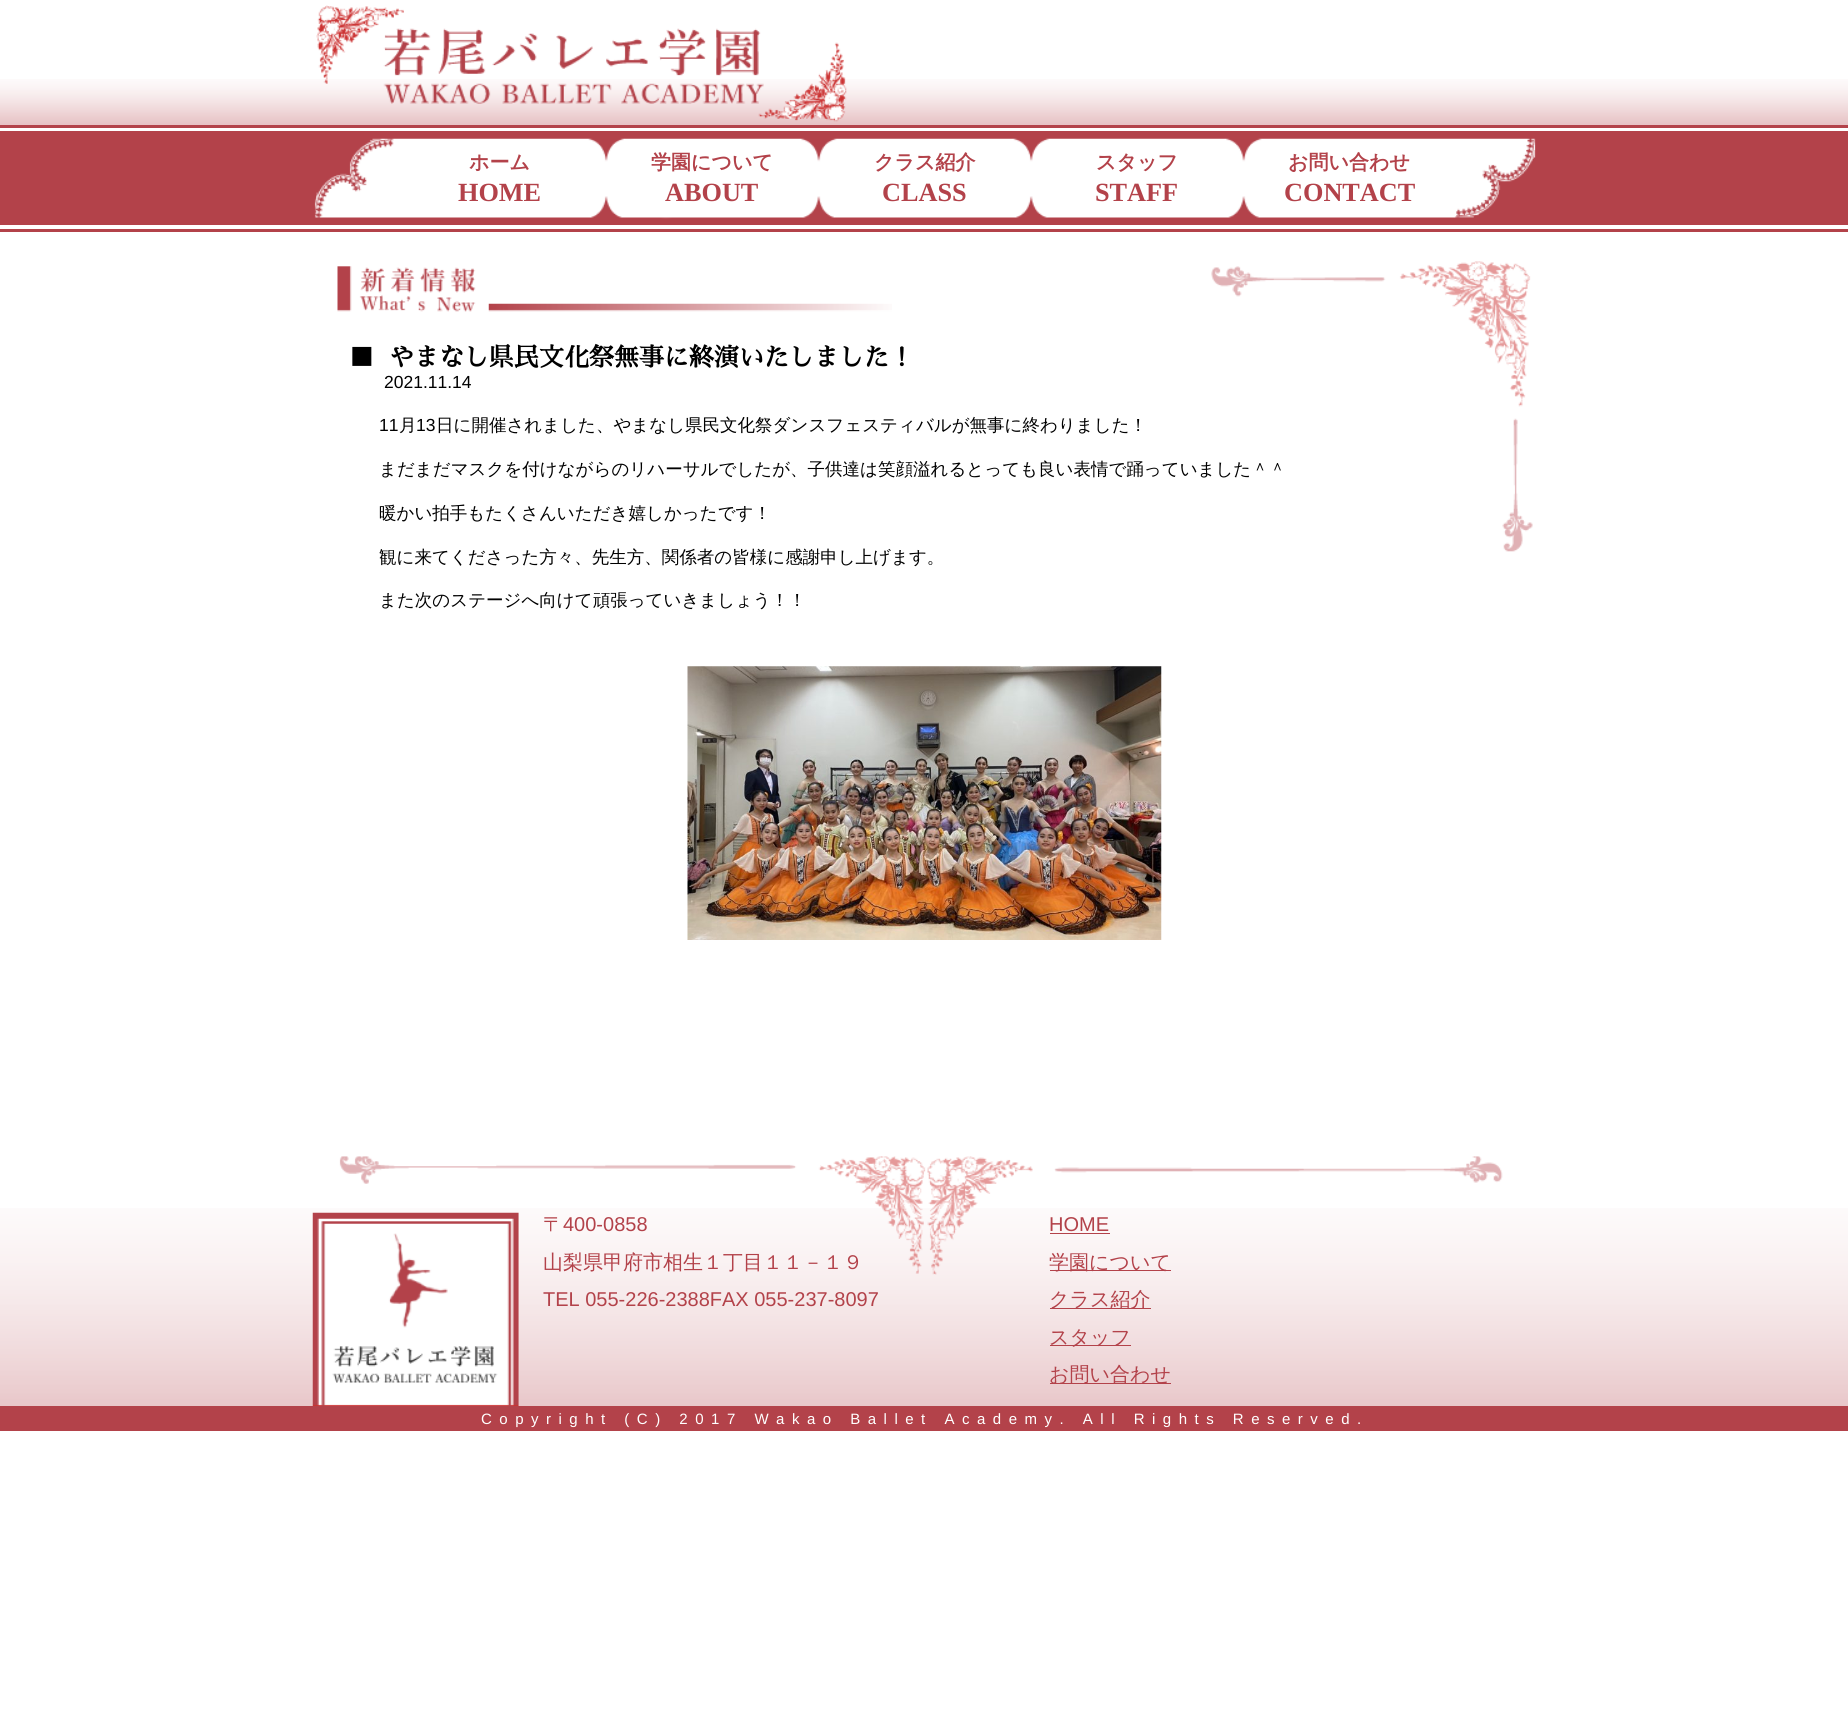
import math
import cairo


def use_color(cr, r, g, b):
  cr.set_source_rgb(r / 255, g / 255, b / 255)

def text(cr, x, y, s, family, size, color, bold=False, italic=False):
  cr.select_font_face(family, cairo.FONT_SLANT_ITALIC if italic else cairo.FONT_SLANT_NORMAL, cairo.FONT_WEIGHT_BOLD if bold else cairo.FONT_WEIGHT_NORMAL)
  cr.set_font_size(size)
  use_color(cr, *color)
  cr.move_to(x, y)
  cr.show_text(s)

def spaced_text(cr, x, y, s, letter, word):
  cr.move_to(x, y)
  for ch in s:
    cr.show_text(ch)
    cr.rel_move_to(letter + word * (ch == ' '), 0)

def box(cr, x, y, w, h, *color):
  use_color(cr, *color)
  cr.rectangle(x, y, w, h)
  cr.fill()

def picture(cr, path, x, y, w, h):
  cr.save()
  cr.set_source_surface(cairo.ImageSurface.create_from_png(path), x, y)
  cr.rectangle(x, y, w, h)
  cr.fill()
  cr.restore()

def draw(cr):
  use_color(cr, 255, 255, 255)
  cr.paint()
  picture(cr, "img_01.png", 0, 79, 1848, 46)
  picture(cr, "img_02.png", 316, 5, 531, 117)
  box(cr, 0, 125, 1848, 3, 179, 66, 74)
  box(cr, 0, 229, 1848, 3, 179, 66, 74)
  box(cr, 0, 131, 1848, 94, 179, 66, 74)
  picture(cr, "img_03.png", 314, 138, 1222, 81)
  picture(cr, "img_04.png", 1211, 261, 322, 291)
  picture(cr, "img_05.png", 337, 266, 555, 46)
  picture(cr, "img_06.png", 687, 666, 475, 274)
  picture(cr, "img_07.png", 0, 1208, 1848, 198)
  picture(cr, "img_08.png", 339, 1156, 1164, 119)
  picture(cr, "img_09.png", 312, 1212, 207, 194)
  box(cr, 1050, 1233, 60, 1, 179, 66, 74)
  box(cr, 1050, 1270, 121, 1, 179, 66, 74)
  box(cr, 1050, 1308, 101, 1, 179, 66, 74)
  box(cr, 1050, 1345, 81, 1, 179, 66, 74)
  box(cr, 1050, 1383, 121, 1, 179, 66, 74)
  box(cr, 0, 1406, 1848, 25, 179, 66, 74)
  text(cr, 469, 169, "ホーム", "WenQuanYi Zen Hei", 20, (179, 66, 74), bold=True)
  text(cr, 458, 201, "HOME", "Liberation Serif", 26.25, (179, 66, 74), bold=True)
  text(cr, 651, 169, "学園について", "WenQuanYi Zen Hei", 20, (179, 66, 74), bold=True)
  text(cr, 665, 201, "ABOUT", "Liberation Serif", 26.25, (179, 66, 74), bold=True)
  text(cr, 874, 169, "クラス紹介", "WenQuanYi Zen Hei", 20, (179, 66, 74), bold=True)
  text(cr, 882, 201, "CLASS", "Liberation Serif", 26.25, (179, 66, 74), bold=True)
  text(cr, 1096, 169, "スタッフ", "WenQuanYi Zen Hei", 20, (179, 66, 74), bold=True)
  text(cr, 1095, 201, "STAFF", "Liberation Serif", 26.25, (179, 66, 74), bold=True)
  text(cr, 1288, 169, "お問い合わせ", "WenQuanYi Zen Hei", 20, (179, 66, 74), bold=True)
  text(cr, 1284, 201, "CONTACT", "Liberation Serif", 26.25, (179, 66, 74), bold=True)
  text(cr, 349, 366, "■  やまなし県民文化祭無事に終演いたしました！", "Sawarabi Mincho", 25, (0, 0, 0), bold=True)
  text(cr, 384, 388, "2021.11.14", "Liberation Sans", 17.5, (0, 0, 0))
  text(cr, 379, 431, "11", "Liberation Sans", 17.5, (0, 0, 0))
  text(cr, 399, 431, "月", "WenQuanYi Zen Hei Medium", 17.5, (0, 0, 0))
  text(cr, 416, 431, "13", "Liberation Sans", 17.5, (0, 0, 0))
  text(cr, 436, 431, "日に開催されました、やまなし県民文化祭ダンスフェスティバルが無事に終わりました！", "WenQuanYi Zen Hei Medium", 17.5, (0, 0, 0))
  text(cr, 379, 475, "まだまだマスクを付けながらのリハーサルでしたが、子供達は笑顔溢れるとっても良い表情で踊っていました＾＾", "WenQuanYi Zen Hei Medium", 17.5, (0, 0, 0))
  text(cr, 379, 519, "暖かい拍手もたくさんいただき嬉しかったです！", "WenQuanYi Zen Hei Medium", 17.5, (0, 0, 0))
  text(cr, 379, 563, "観に来てくださった方々、先生方、関係者の皆様に感謝申し上げます。", "WenQuanYi Zen Hei Medium", 17.5, (0, 0, 0))
  text(cr, 379, 606, "また次のステージへ向けて頑張っていきましょう！！", "WenQuanYi Zen Hei Medium", 17.5, (0, 0, 0))
  text(cr, 543, 1231, "〒", "WenQuanYi Zen Hei Medium", 20, (179, 66, 74))
  text(cr, 563, 1231, "400-0858", "Liberation Sans", 20, (179, 66, 74))
  text(cr, 543, 1269, "山梨県甲府市相生１丁目１１－１９", "WenQuanYi Zen Hei Medium", 20, (179, 66, 74))
  text(cr, 543, 1306, "TEL 055-226-2388FAX 055-237-8097", "Liberation Sans", 20, (179, 66, 74))
  text(cr, 1049, 1231, "HOME", "Liberation Sans", 20, (179, 66, 74))
  text(cr, 1049, 1269, "学園について", "WenQuanYi Zen Hei Medium", 20, (179, 66, 74))
  text(cr, 1049, 1306, "クラス紹介", "WenQuanYi Zen Hei Medium", 20, (179, 66, 74))
  text(cr, 1049, 1344, "スタッフ", "WenQuanYi Zen Hei Medium", 20, (179, 66, 74))
  text(cr, 1049, 1381, "お問い合わせ", "WenQuanYi Zen Hei Medium", 20, (179, 66, 74))
  cr.select_font_face("Liberation Sans")
  cr.set_font_size(15)
  use_color(cr, 255, 255, 255)
  spaced_text(cr, 481, 1424, "Copyright (C) 2017 Wakao Ballet Academy. All Rights Reserved.", 7.5, 0)


surface = cairo.ImageSurface(cairo.FORMAT_RGB24, 1848, 1718)
cr = cairo.Context(surface)
options = cairo.FontOptions()
options.set_hint_metrics(cairo.HINT_METRICS_OFF)
options.set_hint_style(cairo.HINT_STYLE_NONE)
cr.set_font_options(options)
cr.set_miter_limit(4)
draw(cr)
surface.write_to_png("out.png")
